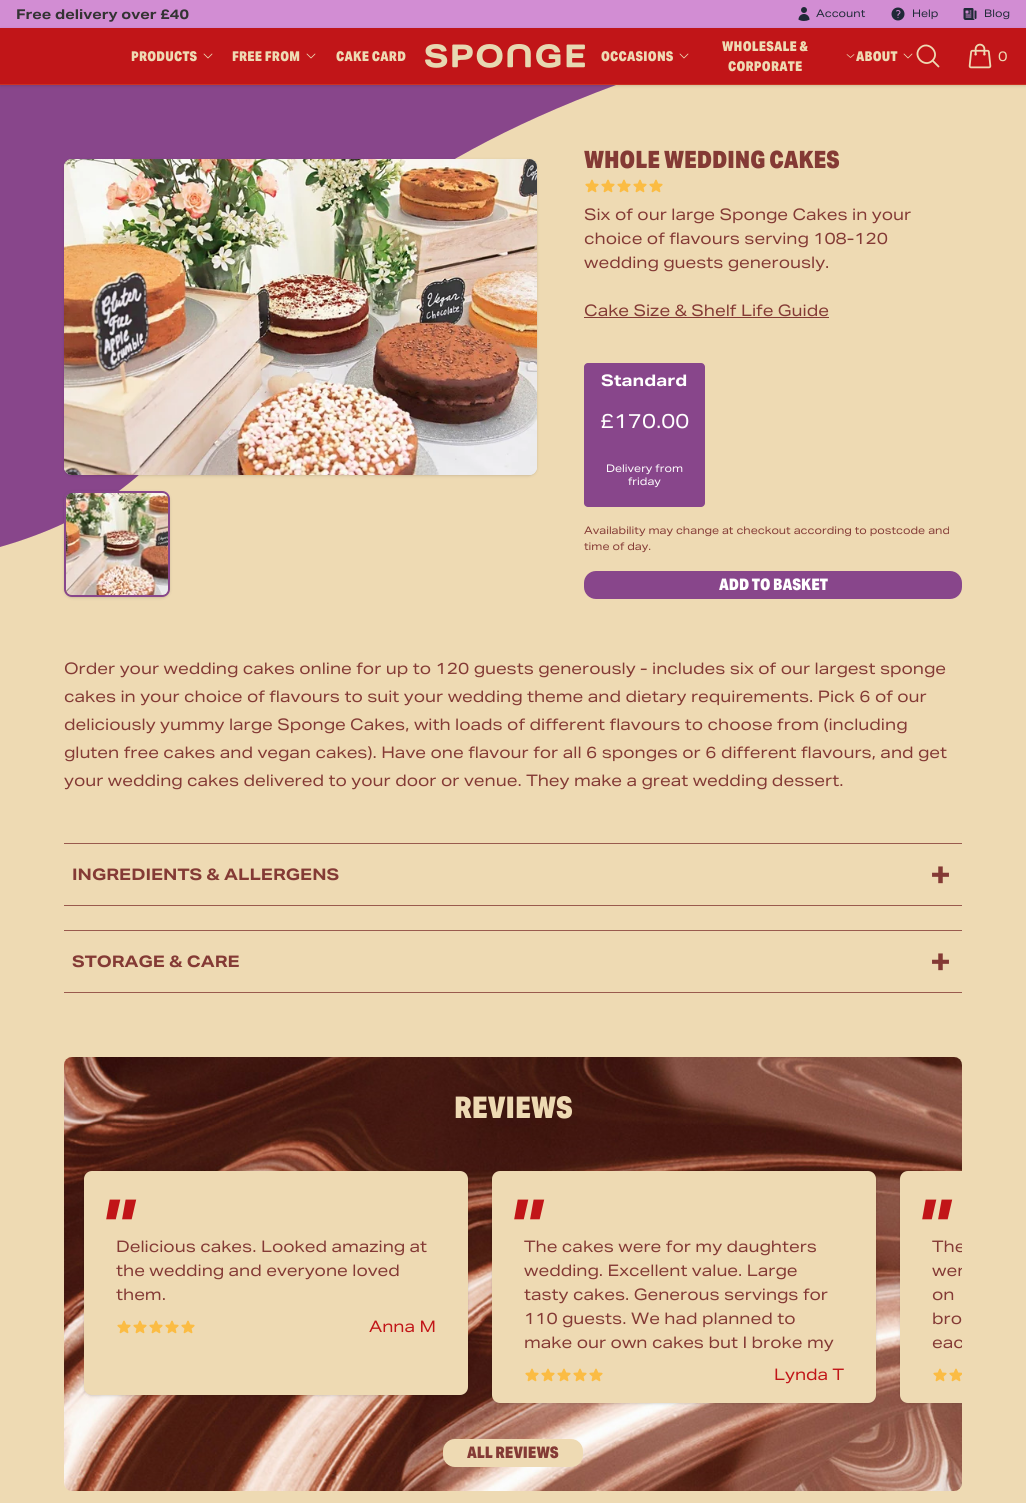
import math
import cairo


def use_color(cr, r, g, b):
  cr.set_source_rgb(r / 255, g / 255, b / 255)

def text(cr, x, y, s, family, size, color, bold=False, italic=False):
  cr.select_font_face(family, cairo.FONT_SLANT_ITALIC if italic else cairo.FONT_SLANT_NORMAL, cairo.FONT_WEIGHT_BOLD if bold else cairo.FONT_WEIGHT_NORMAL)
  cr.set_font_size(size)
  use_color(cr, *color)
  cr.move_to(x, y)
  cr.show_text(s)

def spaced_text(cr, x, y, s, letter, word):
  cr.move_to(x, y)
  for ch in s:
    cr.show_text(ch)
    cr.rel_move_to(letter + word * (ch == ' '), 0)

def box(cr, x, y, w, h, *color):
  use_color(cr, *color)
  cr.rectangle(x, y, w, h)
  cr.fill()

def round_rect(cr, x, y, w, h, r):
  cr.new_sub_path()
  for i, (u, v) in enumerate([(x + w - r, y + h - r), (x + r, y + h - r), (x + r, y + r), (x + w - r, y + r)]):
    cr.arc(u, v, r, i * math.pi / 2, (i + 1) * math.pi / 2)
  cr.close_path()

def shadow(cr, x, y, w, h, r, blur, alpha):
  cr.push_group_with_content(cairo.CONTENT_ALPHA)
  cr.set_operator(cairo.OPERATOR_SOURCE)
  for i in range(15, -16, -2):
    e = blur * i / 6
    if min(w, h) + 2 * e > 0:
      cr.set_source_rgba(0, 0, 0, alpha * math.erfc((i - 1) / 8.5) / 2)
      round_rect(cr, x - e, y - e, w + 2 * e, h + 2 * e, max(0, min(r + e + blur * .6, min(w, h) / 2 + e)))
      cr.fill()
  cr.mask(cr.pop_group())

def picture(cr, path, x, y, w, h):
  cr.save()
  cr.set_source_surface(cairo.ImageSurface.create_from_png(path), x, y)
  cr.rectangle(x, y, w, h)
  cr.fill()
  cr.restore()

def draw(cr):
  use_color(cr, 238, 218, 179)
  cr.paint()
  box(cr, 0, 0, 1026, 28, 210, 141, 211)
  picture(cr, "img_01.png", 798, 7, 12, 14)
  picture(cr, "img_02.png", 891, 7, 14, 14)
  picture(cr, "img_03.png", 963, 8, 14, 12)
  use_color(cr, 136, 70, 139)
  cr.set_fill_rule(cairo.FILL_RULE_EVEN_ODD)
  cr.new_path()
  cr.move_to(0, 547)
  cr.curve_to(278, 467, 168, 251, 616, 85)
  cr.line_to(0, 85)
  cr.close_path()
  cr.fill()
  use_color(cr, 0, 0, 0)
  shadow(cr, 1, 30, 1024, 55, 0, 1, 0.1)
  shadow(cr, 0, 29, 1026, 57, 0, 1.5, 0.1)
  box(cr, 0, 28, 1026, 56, 193, 21, 24)
  box(cr, 0, 84, 1026, 1, 203, 48, 34)
  cr.new_path()
  cr.move_to(212, 54)
  cr.line_to(208, 58)
  cr.line_to(204, 54)
  use_color(cr, 238, 218, 179)
  cr.set_line_width(0.8)
  cr.set_line_cap(cairo.LINE_CAP_ROUND)
  cr.set_line_join(cairo.LINE_JOIN_ROUND)
  cr.stroke()
  cr.new_path()
  cr.move_to(315, 54)
  cr.line_to(311, 58)
  cr.line_to(307, 54)
  cr.stroke()
  picture(cr, "img_04.png", 425, 44, 160, 24)
  cr.new_path()
  cr.move_to(688, 54)
  cr.line_to(684, 58)
  cr.line_to(680, 54)
  cr.stroke()
  cr.new_path()
  cr.move_to(854, 54.5)
  cr.line_to(850.5, 57.5)
  cr.line_to(847, 54.5)
  cr.set_line_width(0.7)
  cr.stroke()
  cr.new_path()
  cr.move_to(912, 54)
  cr.line_to(908, 58)
  cr.line_to(904, 54)
  cr.set_line_width(0.8)
  cr.stroke()
  cr.new_path()
  cr.move_to(938.5, 66.5)
  cr.line_to(932.5, 60.5)
  cr.move_to(932.5, 60.5)
  cr.curve_to(940.5, 52.5, 928, 40, 920, 48)
  cr.curve_to(912, 56, 924.5, 68.5, 932.5, 60.5)
  cr.close_path()
  cr.set_line_width(1.8)
  cr.stroke()
  picture(cr, "img_05.png", 968, 43, 24, 26)
  use_color(cr, 0, 0, 0)
  shadow(cr, 65, 161, 471, 314, 7, 1, 0.1)
  shadow(cr, 64, 160, 473, 316, 8, 1.5, 0.1)
  use_color(cr, 243, 244, 246)
  round_rect(cr, 64, 159, 473, 316, 8)
  cr.fill()
  picture(cr, "img_06.png", 64, 159, 473, 316)
  use_color(cr, 0, 0, 0)
  shadow(cr, 65, 493, 104, 104, 7, 1, 0.1)
  shadow(cr, 64, 492, 106, 106, 8, 1.5, 0.1)
  round_rect(cr, 65, 492, 104, 104, 7)
  use_color(cr, 136, 70, 139)
  cr.set_line_width(2)
  cr.set_line_cap(cairo.LINE_CAP_BUTT)
  cr.set_line_join(cairo.LINE_JOIN_MITER)
  cr.stroke()
  picture(cr, "img_07.png", 66, 493, 102, 102)
  picture(cr, "img_08.png", 585, 179, 14, 14)
  picture(cr, "img_08.png", 601, 179, 14, 14)
  picture(cr, "img_08.png", 617, 179, 14, 14)
  picture(cr, "img_08.png", 633, 179, 14, 14)
  picture(cr, "img_08.png", 649, 179, 14, 14)
  box(cr, 584, 317, 245, 1, 132, 58, 53)
  use_color(cr, 136, 70, 139)
  round_rect(cr, 584, 363, 121, 144, 4)
  cr.fill()
  round_rect(cr, 584, 571, 378, 28, 12)
  cr.fill()
  box(cr, 64, 843, 898, 1, 153, 90, 78)
  box(cr, 64, 905, 898, 1, 153, 90, 78)
  box(cr, 64, 930, 898, 1, 153, 90, 78)
  box(cr, 64, 992, 898, 1, 153, 90, 78)
  picture(cr, "img_09.png", 64, 1057, 898, 434)
  use_color(cr, 0, 0, 0)
  shadow(cr, 85, 1173, 382, 222, 7, 1, 0.1)
  shadow(cr, 84, 1172, 384, 224, 8, 1.5, 0.1)
  use_color(cr, 238, 218, 179)
  round_rect(cr, 84, 1171, 384, 224, 8)
  cr.fill()
  picture(cr, "img_08.png", 117, 1320, 14, 14)
  picture(cr, "img_08.png", 133, 1320, 14, 14)
  picture(cr, "img_08.png", 149, 1320, 14, 14)
  picture(cr, "img_08.png", 165, 1320, 14, 14)
  picture(cr, "img_08.png", 181, 1320, 14, 14)
  use_color(cr, 0, 0, 0)
  shadow(cr, 493, 1173, 382, 230, 7, 1, 0.1)
  shadow(cr, 492, 1172, 384, 232, 8, 1.5, 0.1)
  use_color(cr, 238, 218, 179)
  round_rect(cr, 492, 1171, 384, 232, 8)
  cr.fill()
  picture(cr, "img_08.png", 525, 1368, 14, 14)
  picture(cr, "img_08.png", 541, 1368, 14, 14)
  picture(cr, "img_08.png", 557, 1368, 14, 14)
  picture(cr, "img_08.png", 573, 1368, 14, 14)
  picture(cr, "img_08.png", 589, 1368, 14, 14)
  cr.save()
  cr.set_fill_rule(cairo.FILL_RULE_WINDING)
  round_rect(cr, 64, 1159, 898, 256, 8)
  cr.clip()
  use_color(cr, 0, 0, 0)
  shadow(cr, 900, 1172, 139, 232, 8, 1.5, 0.1)
  cr.restore()
  cr.new_path()
  cr.move_to(908, 1171)
  cr.line_to(962, 1171)
  cr.line_to(962, 1403)
  cr.line_to(908, 1403)
  cr.curve_to(903.5, 1403, 900, 1399.5, 900, 1395)
  cr.line_to(900, 1179)
  cr.curve_to(900, 1174.5, 903.5, 1171, 908, 1171)
  cr.close_path()
  cr.fill()
  picture(cr, "img_08.png", 933, 1368, 14, 14)
  picture(cr, "img_10.png", 949, 1368, 13, 14)
  round_rect(cr, 443, 1439, 140, 28, 12)
  cr.fill()
  text(cr, 16, 19, "Free delivery over £40", "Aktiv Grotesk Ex", 13.6, (51, 51, 51), bold=True)
  text(cr, 816, 17, "Account", "Aktiv Grotesk Ex", 10.55, (31, 41, 55))
  text(cr, 912, 17, "Help", "Aktiv Grotesk Ex", 10.55, (31, 41, 55))
  text(cr, 984, 17, "Blog", "Aktiv Grotesk Ex", 10.55, (31, 41, 55))
  cr.select_font_face("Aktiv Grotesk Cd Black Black")
  cr.set_font_size(13.6)
  use_color(cr, 238, 218, 179)
  spaced_text(cr, 131, 61, "PRODUCTS", 0.25, 0)
  spaced_text(cr, 232, 61, "FREE FROM", 0.25, 0)
  spaced_text(cr, 336, 61, "CAKE CARD", 0.25, 0)
  spaced_text(cr, 601, 61, "OCCASIONS", 0.25, 0)
  spaced_text(cr, 722, 51, "WHOLESALE &", 0.25, 0)
  spaced_text(cr, 728, 71, "CORPORATE", 0.25, 0)
  spaced_text(cr, 856, 61, "ABOUT", 0.25, 0)
  text(cr, 998, 61, "0", "Aktiv Grotesk Ex", 13.6, (238, 218, 179))
  text(cr, 584, 168, "WHOLE WEDDING CAKES", "Aktiv Grotesk Cd Black Black", 24, (132, 58, 53))
  text(cr, 584, 220, "Six of our large Sponge Cakes in your", "Aktiv Grotesk Ex", 16, (132, 58, 53))
  text(cr, 584, 244, "choice of flavours serving 108-120", "Aktiv Grotesk Ex", 16, (132, 58, 53))
  text(cr, 584, 268, "wedding guests generously.", "Aktiv Grotesk Ex", 16, (132, 58, 53))
  text(cr, 584, 316, "Cake Size & Shelf Life Guide", "Aktiv Grotesk Ex", 16, (132, 58, 53))
  text(cr, 601, 386, "Standard", "Aktiv Grotesk Ex", 16, (255, 255, 255), bold=True)
  text(cr, 600, 428, "£170.00", "Aktiv Grotesk Ex", 20, (255, 255, 255))
  text(cr, 606, 472, "Delivery from", "Aktiv Grotesk Ex", 10.55, (255, 255, 255))
  text(cr, 628, 485, "friday", "Aktiv Grotesk Ex", 10.55, (255, 255, 255))
  text(cr, 584, 534, "Availability may change at checkout according to postcode and", "Aktiv Grotesk Ex", 10.55, (132, 58, 53))
  text(cr, 584, 550, "time of day.", "Aktiv Grotesk Ex", 10.55, (132, 58, 53))
  text(cr, 719, 590, "ADD TO BASKET", "Aktiv Grotesk Cd Black Black", 16, (255, 255, 255))
  text(cr, 64, 674, "Order your wedding cakes online for up to 120 guests generously - includes six of our largest sponge", "Aktiv Grotesk Ex", 16, (132, 58, 53))
  text(cr, 64, 702, "cakes in your choice of flavours to suit your wedding theme and dietary requirements. Pick 6 of our", "Aktiv Grotesk Ex", 16, (132, 58, 53))
  text(cr, 64, 730, "deliciously yummy large Sponge Cakes, with loads of different flavours to choose from (including", "Aktiv Grotesk Ex", 16, (132, 58, 53))
  text(cr, 64, 758, "gluten free cakes and vegan cakes). Have one flavour for all 6 sponges or 6 different flavours, and get", "Aktiv Grotesk Ex", 16, (132, 58, 53))
  text(cr, 64, 786, "your wedding cakes delivered to your door or venue. They make a great wedding dessert.", "Aktiv Grotesk Ex", 16, (132, 58, 53))
  text(cr, 72, 880, "INGREDIENTS & ALLERGENS", "Aktiv Grotesk Ex", 16, (132, 58, 53), bold=True)
  text(cr, 930, 885, "+", "Aktiv Grotesk Ex", 30, (132, 58, 53), bold=True)
  text(cr, 72, 967, "STORAGE & CARE", "Aktiv Grotesk Ex", 16, (132, 58, 53), bold=True)
  text(cr, 930, 972, "+", "Aktiv Grotesk Ex", 30, (132, 58, 53), bold=True)
  text(cr, 454, 1118, "REVIEWS", "Aktiv Grotesk Cd Black Black", 30, (238, 218, 179))
  text(cr, 100, 1251, "\"", "Aktiv Grotesk Ex", 72, (193, 21, 24), bold=True, italic=True)
  text(cr, 116, 1252, "Delicious cakes. Looked amazing at", "Aktiv Grotesk Ex", 16, (132, 58, 53))
  text(cr, 116, 1276, "the wedding and everyone loved", "Aktiv Grotesk Ex", 16, (132, 58, 53))
  text(cr, 116, 1300, "them.", "Aktiv Grotesk Ex", 16, (132, 58, 53))
  text(cr, 369, 1332, "Anna M", "Aktiv Grotesk Ex", 16, (193, 21, 24))
  text(cr, 508, 1251, "\"", "Aktiv Grotesk Ex", 72, (193, 21, 24), bold=True, italic=True)
  text(cr, 524, 1252, "The cakes were for my daughters", "Aktiv Grotesk Ex", 16, (132, 58, 53))
  text(cr, 524, 1276, "wedding. Excellent value. Large", "Aktiv Grotesk Ex", 16, (132, 58, 53))
  text(cr, 524, 1300, "tasty cakes. Generous servings for", "Aktiv Grotesk Ex", 16, (132, 58, 53))
  text(cr, 524, 1324, "110 guests. We had planned to", "Aktiv Grotesk Ex", 16, (132, 58, 53))
  text(cr, 524, 1348, "make our own cakes but I broke my", "Aktiv Grotesk Ex", 16, (132, 58, 53))
  text(cr, 774, 1380, "Lynda T", "Aktiv Grotesk Ex", 16, (193, 21, 24))
  text(cr, 916, 1251, "\"", "Aktiv Grotesk Ex", 72, (193, 21, 24), bold=True, italic=True)
  cr.save()
  cr.set_fill_rule(cairo.FILL_RULE_WINDING)
  round_rect(cr, 64, 1159, 898, 256, 8)
  cr.clip()
  text(cr, 932, 1252, "The", "Aktiv Grotesk Ex", 16, (132, 58, 53))
  text(cr, 932, 1276, "wer", "Aktiv Grotesk Ex", 16, (132, 58, 53))
  cr.restore()
  text(cr, 932, 1300, "on", "Aktiv Grotesk Ex", 16, (132, 58, 53))
  text(cr, 932, 1324, "bro", "Aktiv Grotesk Ex", 16, (132, 58, 53))
  cr.save()
  cr.set_fill_rule(cairo.FILL_RULE_WINDING)
  round_rect(cr, 64, 1159, 898, 256, 8)
  cr.clip()
  text(cr, 932, 1348, "eac", "Aktiv Grotesk Ex", 16, (132, 58, 53))
  cr.restore()
  text(cr, 467, 1458, "ALL REVIEWS", "Aktiv Grotesk Cd Black Black", 16, (132, 58, 53))


surface = cairo.ImageSurface(cairo.FORMAT_RGB24, 1026, 1503)
cr = cairo.Context(surface)
options = cairo.FontOptions()
options.set_hint_metrics(cairo.HINT_METRICS_OFF)
options.set_hint_style(cairo.HINT_STYLE_NONE)
cr.set_font_options(options)
cr.set_miter_limit(4)
draw(cr)
surface.write_to_png("out.png")
